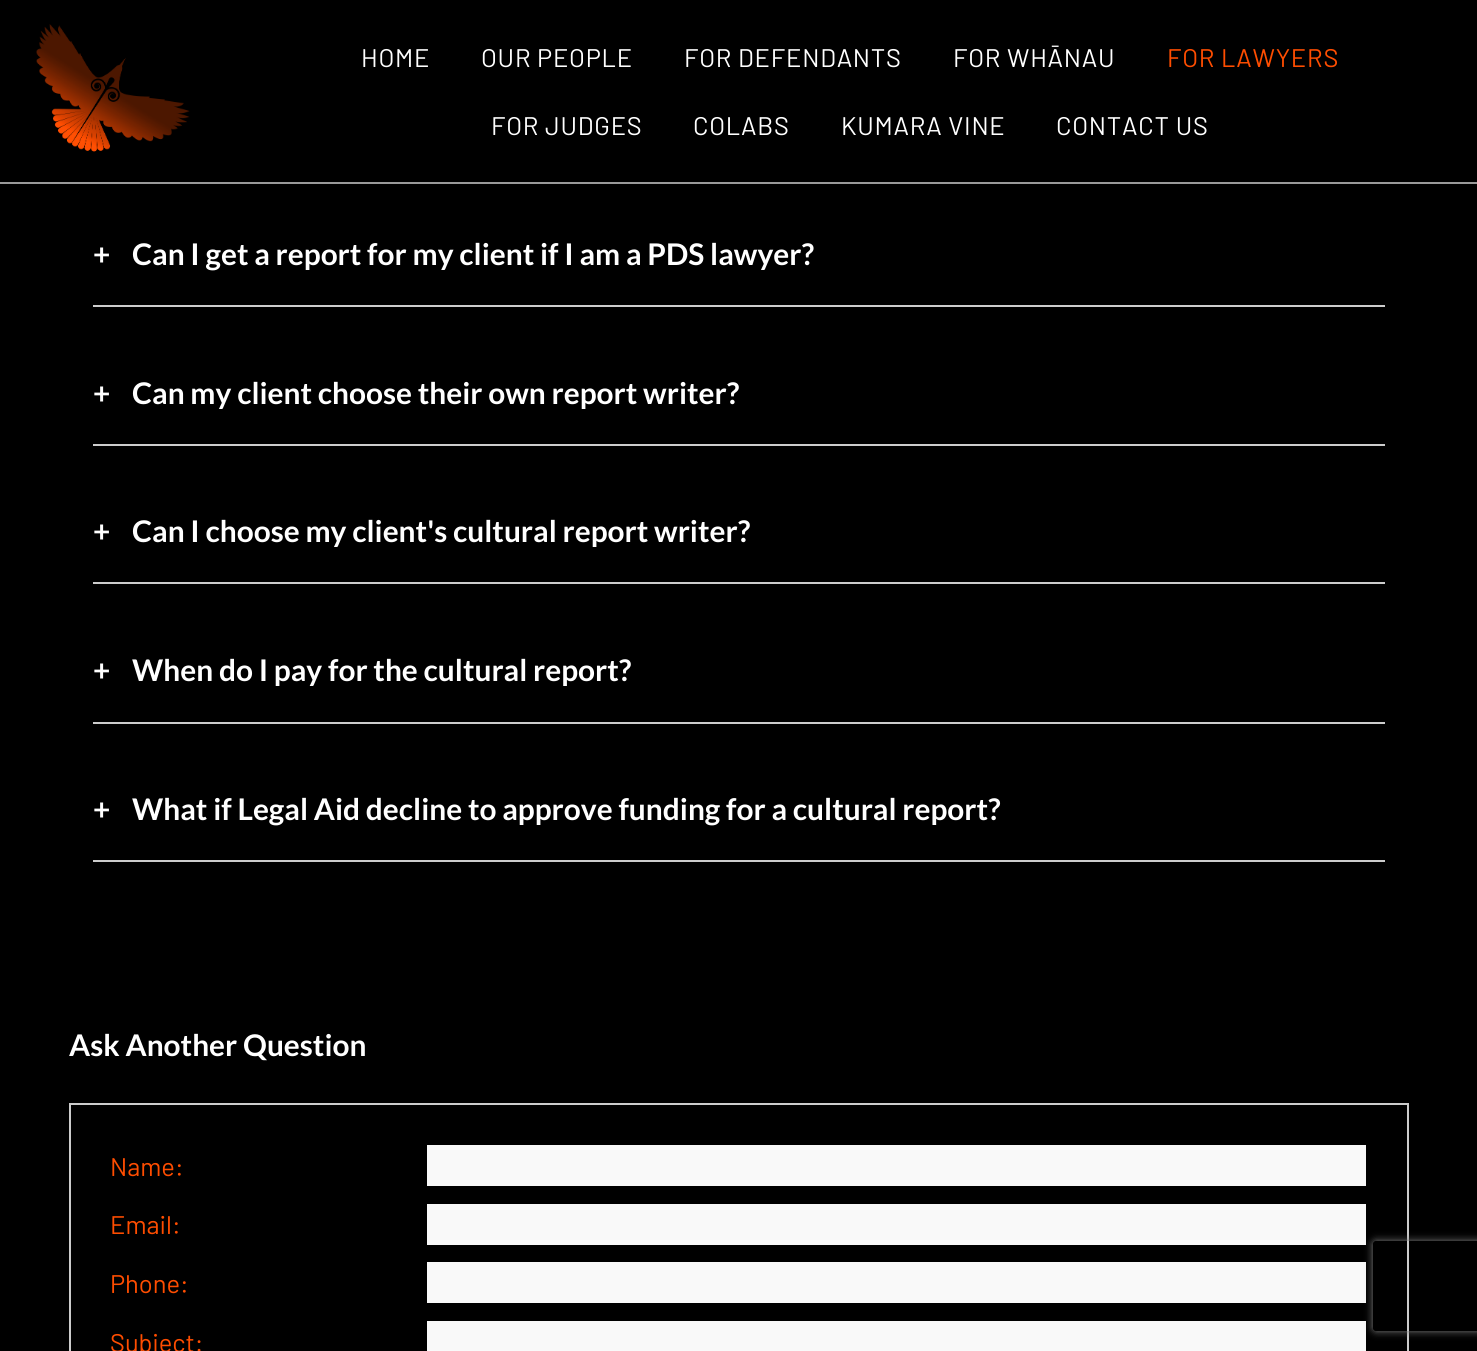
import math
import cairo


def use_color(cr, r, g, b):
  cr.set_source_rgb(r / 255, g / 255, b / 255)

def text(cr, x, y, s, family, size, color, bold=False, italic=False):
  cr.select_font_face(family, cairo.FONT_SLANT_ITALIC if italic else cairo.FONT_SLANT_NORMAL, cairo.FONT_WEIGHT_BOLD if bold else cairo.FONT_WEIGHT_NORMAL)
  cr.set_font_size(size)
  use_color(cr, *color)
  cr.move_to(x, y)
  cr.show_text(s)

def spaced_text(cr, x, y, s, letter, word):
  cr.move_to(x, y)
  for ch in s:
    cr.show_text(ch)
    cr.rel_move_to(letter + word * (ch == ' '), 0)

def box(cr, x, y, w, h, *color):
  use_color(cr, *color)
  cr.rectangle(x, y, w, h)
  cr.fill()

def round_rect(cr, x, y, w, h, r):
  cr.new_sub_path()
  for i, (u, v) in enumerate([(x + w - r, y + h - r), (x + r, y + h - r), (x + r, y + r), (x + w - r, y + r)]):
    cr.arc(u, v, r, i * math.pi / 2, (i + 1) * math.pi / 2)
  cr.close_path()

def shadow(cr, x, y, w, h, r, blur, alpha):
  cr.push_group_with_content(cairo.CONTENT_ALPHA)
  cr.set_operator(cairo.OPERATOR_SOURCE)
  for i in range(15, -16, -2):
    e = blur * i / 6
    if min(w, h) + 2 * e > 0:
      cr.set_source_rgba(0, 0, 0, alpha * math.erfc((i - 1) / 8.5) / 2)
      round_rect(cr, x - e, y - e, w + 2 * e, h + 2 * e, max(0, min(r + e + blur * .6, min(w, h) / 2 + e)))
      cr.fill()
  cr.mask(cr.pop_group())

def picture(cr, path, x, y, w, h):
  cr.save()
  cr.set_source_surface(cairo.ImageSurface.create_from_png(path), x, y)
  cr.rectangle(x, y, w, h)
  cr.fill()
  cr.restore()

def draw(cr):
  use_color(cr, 0, 0, 0)
  cr.paint()
  box(cr, 0, 182, 1477, 2, 153, 153, 153)
  picture(cr, "img_01.png", 36, 24, 154, 128)
  box(cr, 93, 305, 1292, 2, 204, 204, 204)
  box(cr, 93, 444, 1292, 2, 204, 204, 204)
  box(cr, 93, 582, 1292, 2, 204, 204, 204)
  box(cr, 93, 722, 1292, 2, 204, 204, 204)
  box(cr, 93, 860, 1292, 2, 204, 204, 204)
  cr.rectangle(70, 1104, 1338, 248)
  cr.stroke()
  box(cr, 427, 1145, 939, 41, 249, 249, 249)
  box(cr, 427, 1204, 939, 41, 249, 249, 249)
  box(cr, 427, 1262, 939, 41, 249, 249, 249)
  box(cr, 427, 1321, 939, 30, 249, 249, 249)
  cr.save()
  cr.set_fill_rule(cairo.FILL_RULE_EVEN_ODD)
  cr.new_path()
  cr.move_to(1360, 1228)
  cr.line_to(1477, 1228)
  cr.line_to(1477, 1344)
  cr.line_to(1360, 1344)
  cr.close_path()
  cr.move_to(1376, 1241)
  cr.line_to(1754, 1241)
  cr.curve_to(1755.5, 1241, 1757, 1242.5, 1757, 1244)
  cr.line_to(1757, 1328)
  cr.curve_to(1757, 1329.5, 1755.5, 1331, 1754, 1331)
  cr.line_to(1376, 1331)
  cr.curve_to(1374.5, 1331, 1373, 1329.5, 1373, 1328)
  cr.line_to(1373, 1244)
  cr.curve_to(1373, 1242.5, 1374.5, 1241, 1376, 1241)
  cr.close_path()
  cr.clip()
  use_color(cr, 128, 128, 128)
  shadow(cr, 1373, 1241, 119, 90, 3, 4, 1)
  cr.restore()
  cr.select_font_face("Barlow")
  cr.set_font_size(25.5)
  use_color(cr, 255, 255, 255)
  spaced_text(cr, 361, 67, "HOME", 0.75, 0)
  spaced_text(cr, 481, 67, "OUR PEOPLE", 0.75, 0)
  spaced_text(cr, 684, 67, "FOR DEFENDANTS", 0.75, 0)
  spaced_text(cr, 953, 67, "FOR WHĀNAU", 0.75, 0)
  use_color(cr, 255, 77, 0)
  spaced_text(cr, 1167, 67, "FOR LAWYERS", 0.75, 0)
  use_color(cr, 255, 255, 255)
  spaced_text(cr, 491, 135, "FOR JUDGES", 0.75, 0)
  spaced_text(cr, 693, 135, "COLABS", 0.75, 0)
  spaced_text(cr, 841, 135, "KUMARA VINE", 0.75, 0)
  spaced_text(cr, 1056, 135, "CONTACT US", 0.75, 0)
  text(cr, 93, 265, "+", "Lato", 29.85, (255, 255, 255), bold=True)
  text(cr, 132, 265, "Can I get a report for my client if I am a PDS lawyer?", "Lato", 29.85, (255, 255, 255), bold=True)
  text(cr, 93, 404, "+", "Lato", 29.85, (255, 255, 255), bold=True)
  text(cr, 132, 404, "Can my client choose their own report writer?", "Lato", 29.85, (255, 255, 255), bold=True)
  text(cr, 93, 542, "+", "Lato", 29.85, (255, 255, 255), bold=True)
  text(cr, 132, 542, "Can I choose my client's cultural report writer?", "Lato", 29.85, (255, 255, 255), bold=True)
  text(cr, 93, 681, "+", "Lato", 29.85, (255, 255, 255), bold=True)
  text(cr, 132, 681, "When do I pay for the cultural report?", "Lato", 29.85, (255, 255, 255), bold=True)
  text(cr, 93, 820, "+", "Lato", 29.85, (255, 255, 255), bold=True)
  text(cr, 132, 820, "What if Legal Aid decline to approve funding for a cultural report?", "Lato", 29.85, (255, 255, 255), bold=True)
  text(cr, 69, 1056, "Ask Another Question", "Lato", 29.85, (255, 255, 255), bold=True)
  text(cr, 110, 1176, "Name:", "Barlow", 25.5, (255, 77, 0))
  text(cr, 110, 1234, "Email:", "Barlow", 25.5, (255, 77, 0))
  text(cr, 110, 1293, "Phone:", "Barlow", 25.5, (255, 77, 0))
  text(cr, 110, 1352, "Subject:", "Barlow", 25.5, (255, 77, 0))


surface = cairo.ImageSurface(cairo.FORMAT_RGB24, 1477, 1351)
cr = cairo.Context(surface)
options = cairo.FontOptions()
options.set_hint_metrics(cairo.HINT_METRICS_OFF)
options.set_hint_style(cairo.HINT_STYLE_NONE)
cr.set_font_options(options)
cr.set_miter_limit(4)
draw(cr)
surface.write_to_png("out.png")
